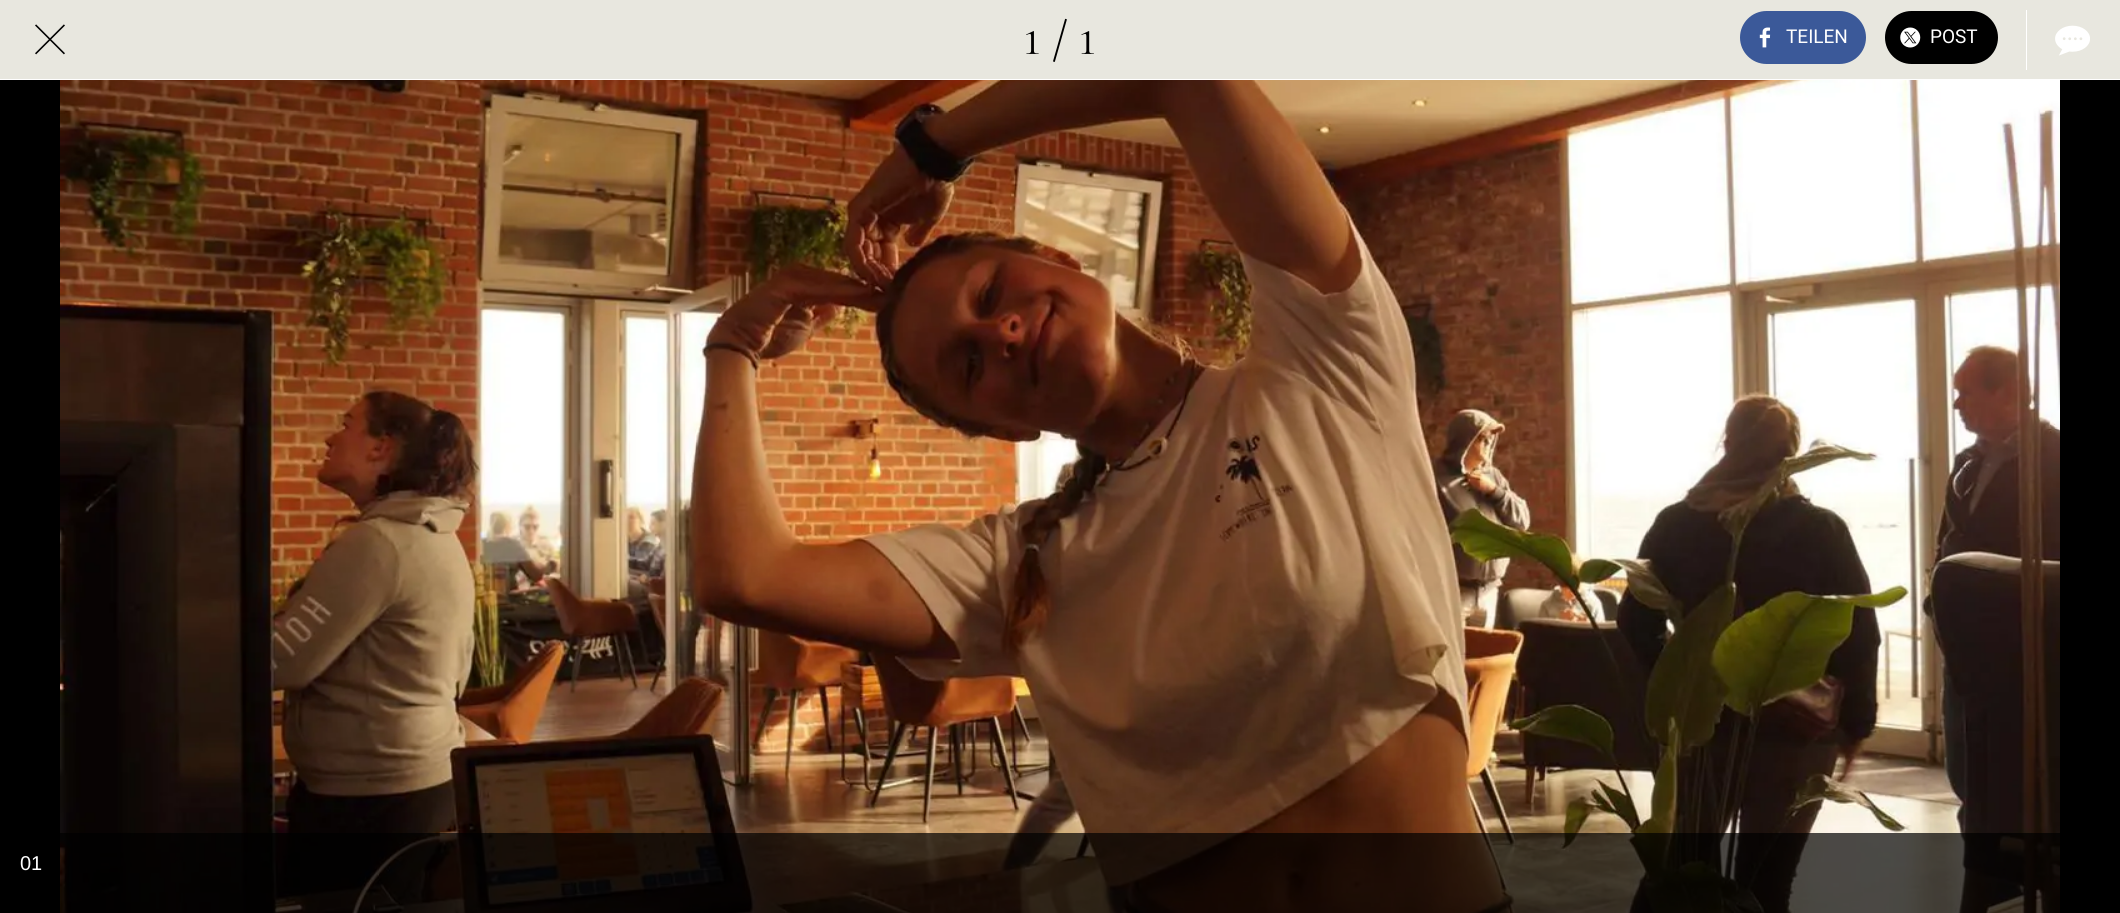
import math
import cairo


def use_color(cr, r, g, b):
  cr.set_source_rgb(r / 255, g / 255, b / 255)

def text(cr, x, y, s, family, size, color, bold=False, italic=False):
  cr.select_font_face(family, cairo.FONT_SLANT_ITALIC if italic else cairo.FONT_SLANT_NORMAL, cairo.FONT_WEIGHT_BOLD if bold else cairo.FONT_WEIGHT_NORMAL)
  cr.set_font_size(size)
  use_color(cr, *color)
  cr.move_to(x, y)
  cr.show_text(s)

def box(cr, x, y, w, h, *color):
  use_color(cr, *color)
  cr.rectangle(x, y, w, h)
  cr.fill()

def round_rect(cr, x, y, w, h, r):
  cr.new_sub_path()
  for i, (u, v) in enumerate([(x + w - r, y + h - r), (x + r, y + h - r), (x + r, y + r), (x + w - r, y + r)]):
    cr.arc(u, v, r, i * math.pi / 2, (i + 1) * math.pi / 2)
  cr.close_path()

def picture(cr, path, x, y, w, h):
  cr.save()
  cr.set_source_surface(cairo.ImageSurface.create_from_png(path), x, y)
  cr.rectangle(x, y, w, h)
  cr.fill()
  cr.restore()

def draw(cr):
  use_color(cr, 0, 0, 0)
  cr.paint()
  box(cr, 0, 0, 2120, 79, 232, 231, 223)
  box(cr, 0, 79, 2120, 1, 255, 255, 255)
  picture(cr, "img_01.png", 35, 24, 30, 31)
  use_color(cr, 59, 89, 153)
  round_rect(cr, 1740, 11, 126, 53, 26.5)
  cr.fill()
  picture(cr, "img_02.png", 1759, 27, 12, 21)
  box(cr, 2026, 10, 1, 60, 255, 255, 255)
  use_color(cr, 0, 0, 0)
  round_rect(cr, 1885, 11, 113, 53, 26.5)
  cr.fill()
  picture(cr, "img_03.png", 1900, 27, 21, 21)
  picture(cr, "img_04.png", 2055, 25, 35, 31)
  picture(cr, "img_05.png", 60, 80, 2000, 833)
  cr.set_source_rgba(0, 0, 0, 0.7)
  cr.rectangle(60, 833, 2000, 80)
  cr.fill()
  text(cr, 1024, 54, "1 / 1", "Cormorant SC", 48, (0, 0, 0))
  text(cr, 1786, 43, "TEILEN", "Roboto", 19, (255, 255, 255))
  text(cr, 1930, 43, "POST", "Roboto", 19, (255, 255, 255))
  text(cr, 20, 870, "01", "Liberation Sans", 20, (255, 255, 255))


surface = cairo.ImageSurface(cairo.FORMAT_RGB24, 2120, 913)
cr = cairo.Context(surface)
options = cairo.FontOptions()
options.set_hint_metrics(cairo.HINT_METRICS_OFF)
options.set_hint_style(cairo.HINT_STYLE_NONE)
cr.set_font_options(options)
cr.set_miter_limit(4)
draw(cr)
surface.write_to_png("out.png")
